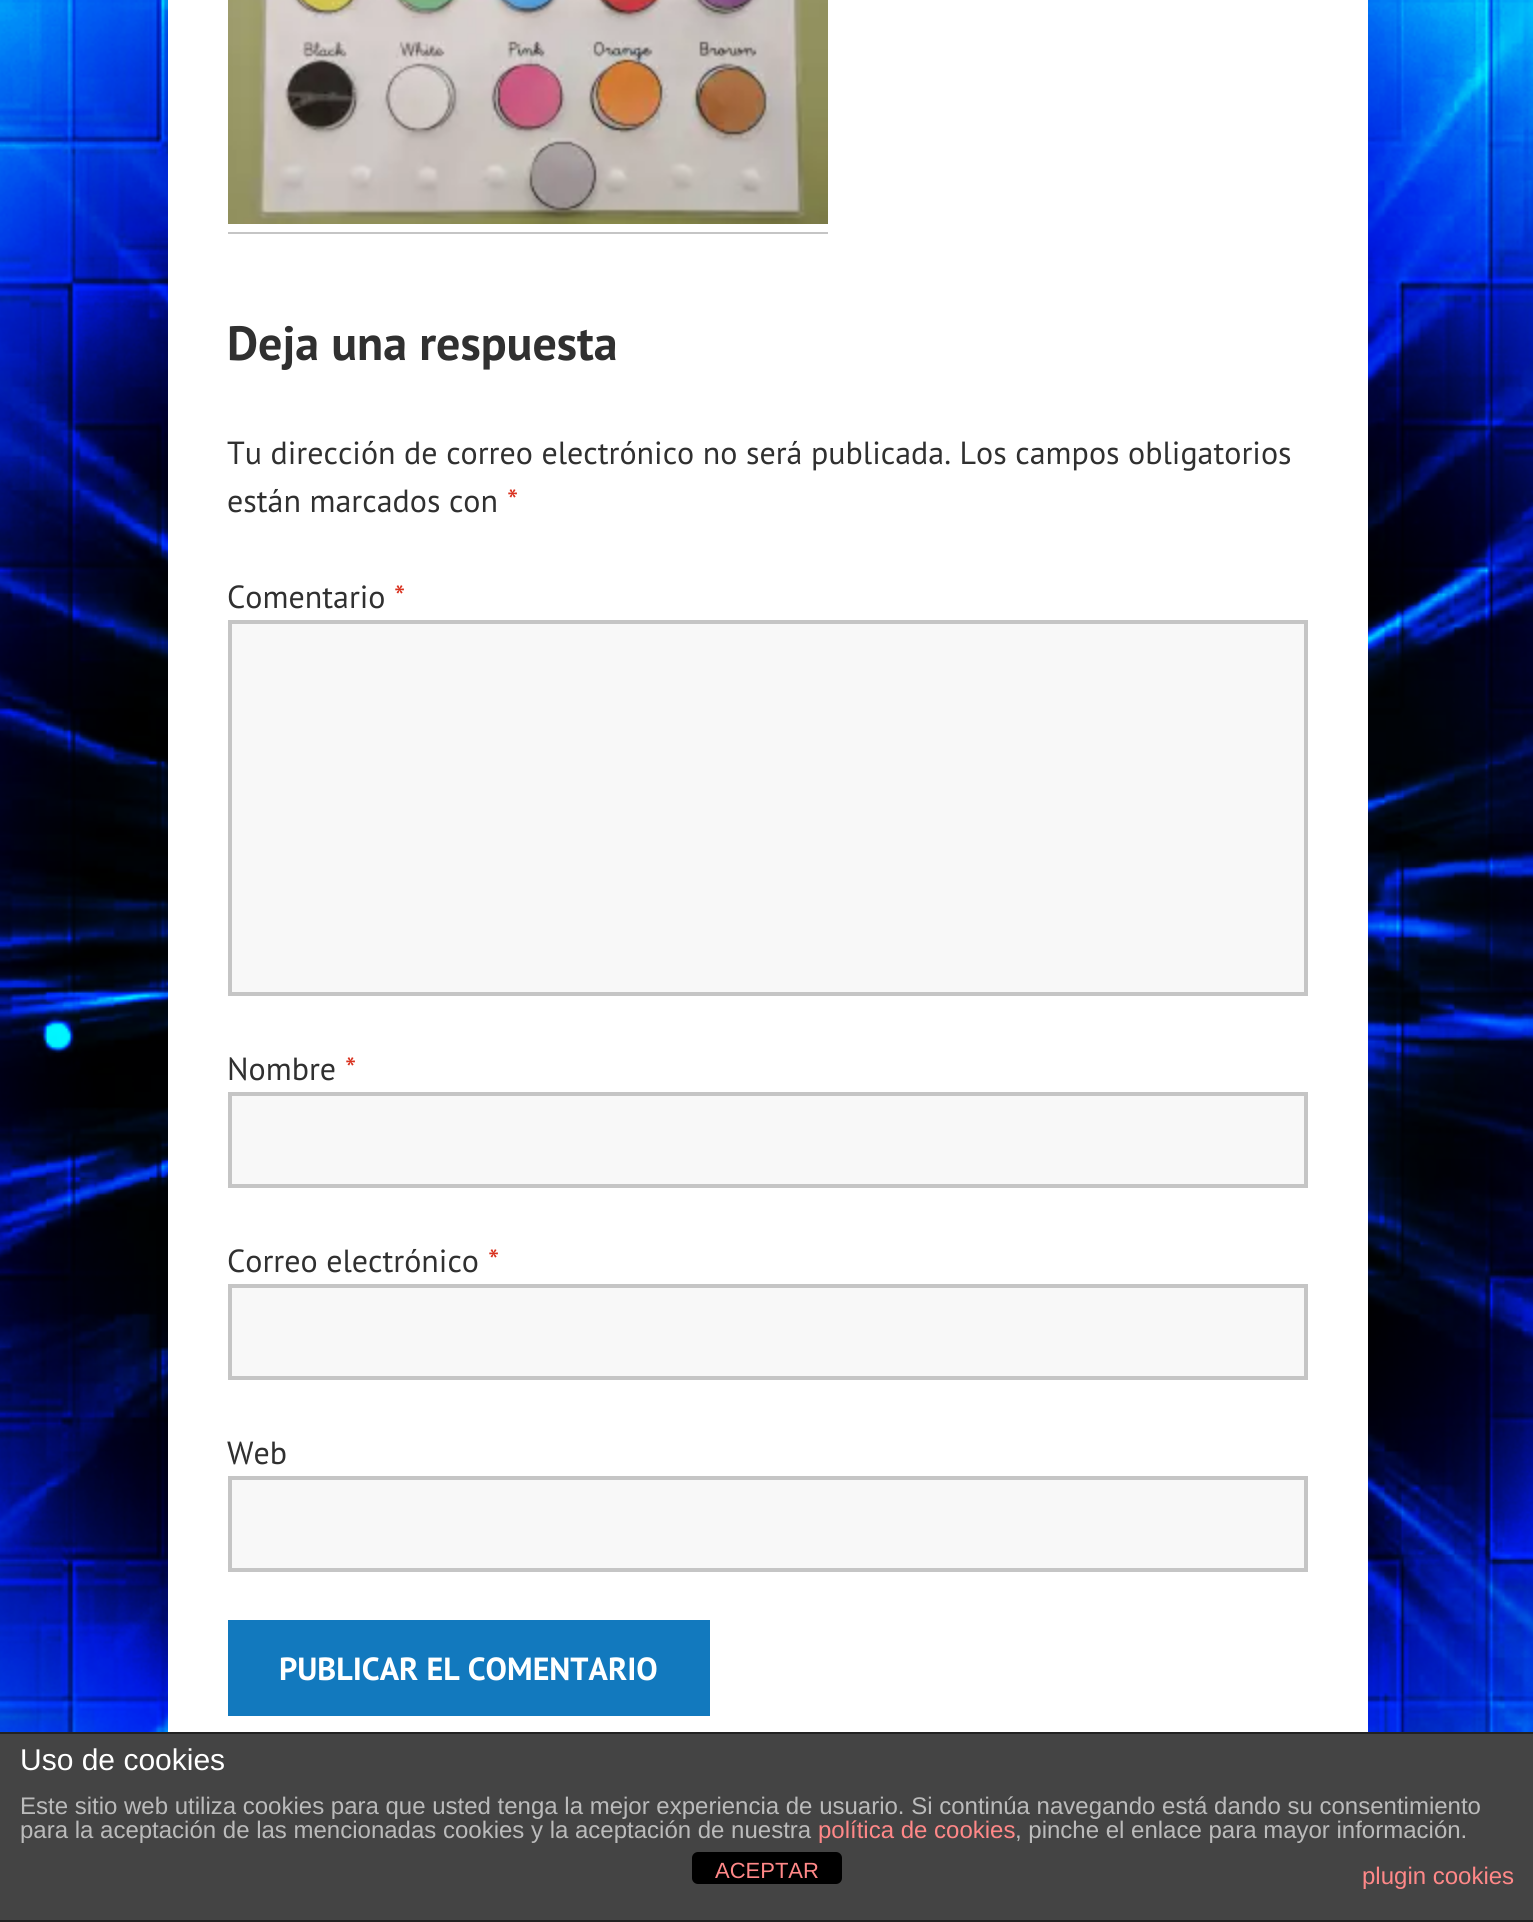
import math
import cairo


def use_color(cr, r, g, b):
  cr.set_source_rgb(r / 255, g / 255, b / 255)

def text(cr, x, y, s, family, size, color, bold=False, italic=False):
  cr.select_font_face(family, cairo.FONT_SLANT_ITALIC if italic else cairo.FONT_SLANT_NORMAL, cairo.FONT_WEIGHT_BOLD if bold else cairo.FONT_WEIGHT_NORMAL)
  cr.set_font_size(size)
  use_color(cr, *color)
  cr.move_to(x, y)
  cr.show_text(s)

def box(cr, x, y, w, h, *color):
  use_color(cr, *color)
  cr.rectangle(x, y, w, h)
  cr.fill()

def round_rect(cr, x, y, w, h, r):
  cr.new_sub_path()
  for i, (u, v) in enumerate([(x + w - r, y + h - r), (x + r, y + h - r), (x + r, y + r), (x + w - r, y + r)]):
    cr.arc(u, v, r, i * math.pi / 2, (i + 1) * math.pi / 2)
  cr.close_path()

def picture(cr, path, x, y, w, h):
  cr.save()
  cr.set_source_surface(cairo.ImageSurface.create_from_png(path), x, y)
  cr.rectangle(x, y, w, h)
  cr.fill()
  cr.restore()

def draw(cr):
  use_color(cr, 255, 255, 255)
  cr.paint()
  picture(cr, "img_01.png", 0, 0, 1533, 1732)
  box(cr, 168, 0, 1200, 1732, 255, 255, 255)
  picture(cr, "img_02.png", 228, 0, 600, 224)
  box(cr, 228, 232, 600, 2, 197, 197, 197)
  use_color(cr, 248, 248, 248)
  cr.rectangle(230, 622, 1076, 372)
  cr.fill_preserve()
  use_color(cr, 197, 197, 197)
  cr.set_line_width(4)
  cr.stroke()
  use_color(cr, 248, 248, 248)
  cr.rectangle(230, 1094, 1076, 92)
  cr.fill_preserve()
  use_color(cr, 197, 197, 197)
  cr.stroke()
  use_color(cr, 248, 248, 248)
  cr.rectangle(230, 1286, 1076, 92)
  cr.fill_preserve()
  use_color(cr, 197, 197, 197)
  cr.stroke()
  use_color(cr, 248, 248, 248)
  cr.rectangle(230, 1478, 1076, 92)
  cr.fill_preserve()
  use_color(cr, 197, 197, 197)
  cr.stroke()
  box(cr, 228, 1620, 482, 96, 18, 121, 190)
  box(cr, 0, 1734, 1533, 186, 68, 68, 68)
  box(cr, 0, 1732, 1533, 2, 34, 34, 34)
  box(cr, 0, 1920, 1533, 2, 34, 34, 34)
  use_color(cr, 0, 0, 0)
  round_rect(cr, 692, 1852, 150, 32, 6)
  cr.fill()
  text(cr, 227, 360, "Deja una respuesta", "PT Sans", 48, (48, 48, 48), bold=True)
  text(cr, 227, 464, "Tu dirección de correo electrónico no será publicada. Los campos obligatorios", "PT Sans", 32, (48, 48, 48))
  text(cr, 227, 512, "están marcados con", "PT Sans", 32, (48, 48, 48))
  text(cr, 507, 512, "*", "PT Sans", 32, (217, 50, 31))
  text(cr, 227, 608, "Comentario", "PT Sans", 32, (48, 48, 48))
  text(cr, 394, 608, "*", "PT Sans", 32, (217, 50, 31))
  text(cr, 227, 1080, "Nombre", "PT Sans", 32, (48, 48, 48))
  text(cr, 345, 1080, "*", "PT Sans", 32, (217, 50, 31))
  text(cr, 227, 1272, "Correo electrónico", "PT Sans", 32, (48, 48, 48))
  text(cr, 488, 1272, "*", "PT Sans", 32, (217, 50, 31))
  text(cr, 227, 1464, "Web", "PT Sans", 32, (48, 48, 48))
  text(cr, 279, 1680, "PUBLICAR EL COMENTARIO", "PT Sans", 32, (255, 255, 255), bold=True)
  text(cr, 20, 1770, "Uso de cookies", "Liberation Sans", 30, (255, 255, 255))
  text(cr, 20, 1814, "Este sitio web utiliza cookies para que usted tenga la mejor experiencia de usuario. Si continúa navegando está dando su consentimiento", "Liberation Sans", 24, (187, 187, 187))
  text(cr, 20, 1838, "para la aceptación de las mencionadas cookies y la aceptación de nuestra", "Liberation Sans", 24, (187, 187, 187))
  text(cr, 818, 1838, "política de cookies", "Liberation Sans", 24, (255, 136, 136))
  text(cr, 1015, 1838, ", pinche el enlace para mayor información.", "Liberation Sans", 24, (187, 187, 187))
  text(cr, 1362, 1884, "plugin cookies", "Liberation Sans", 24, (255, 136, 136))
  text(cr, 715, 1878, "ACEPTAR", "Liberation Sans", 22, (255, 136, 136))


surface = cairo.ImageSurface(cairo.FORMAT_RGB24, 1533, 1922)
cr = cairo.Context(surface)
options = cairo.FontOptions()
options.set_hint_metrics(cairo.HINT_METRICS_OFF)
options.set_hint_style(cairo.HINT_STYLE_NONE)
cr.set_font_options(options)
cr.set_miter_limit(4)
draw(cr)
surface.write_to_png("out.png")
